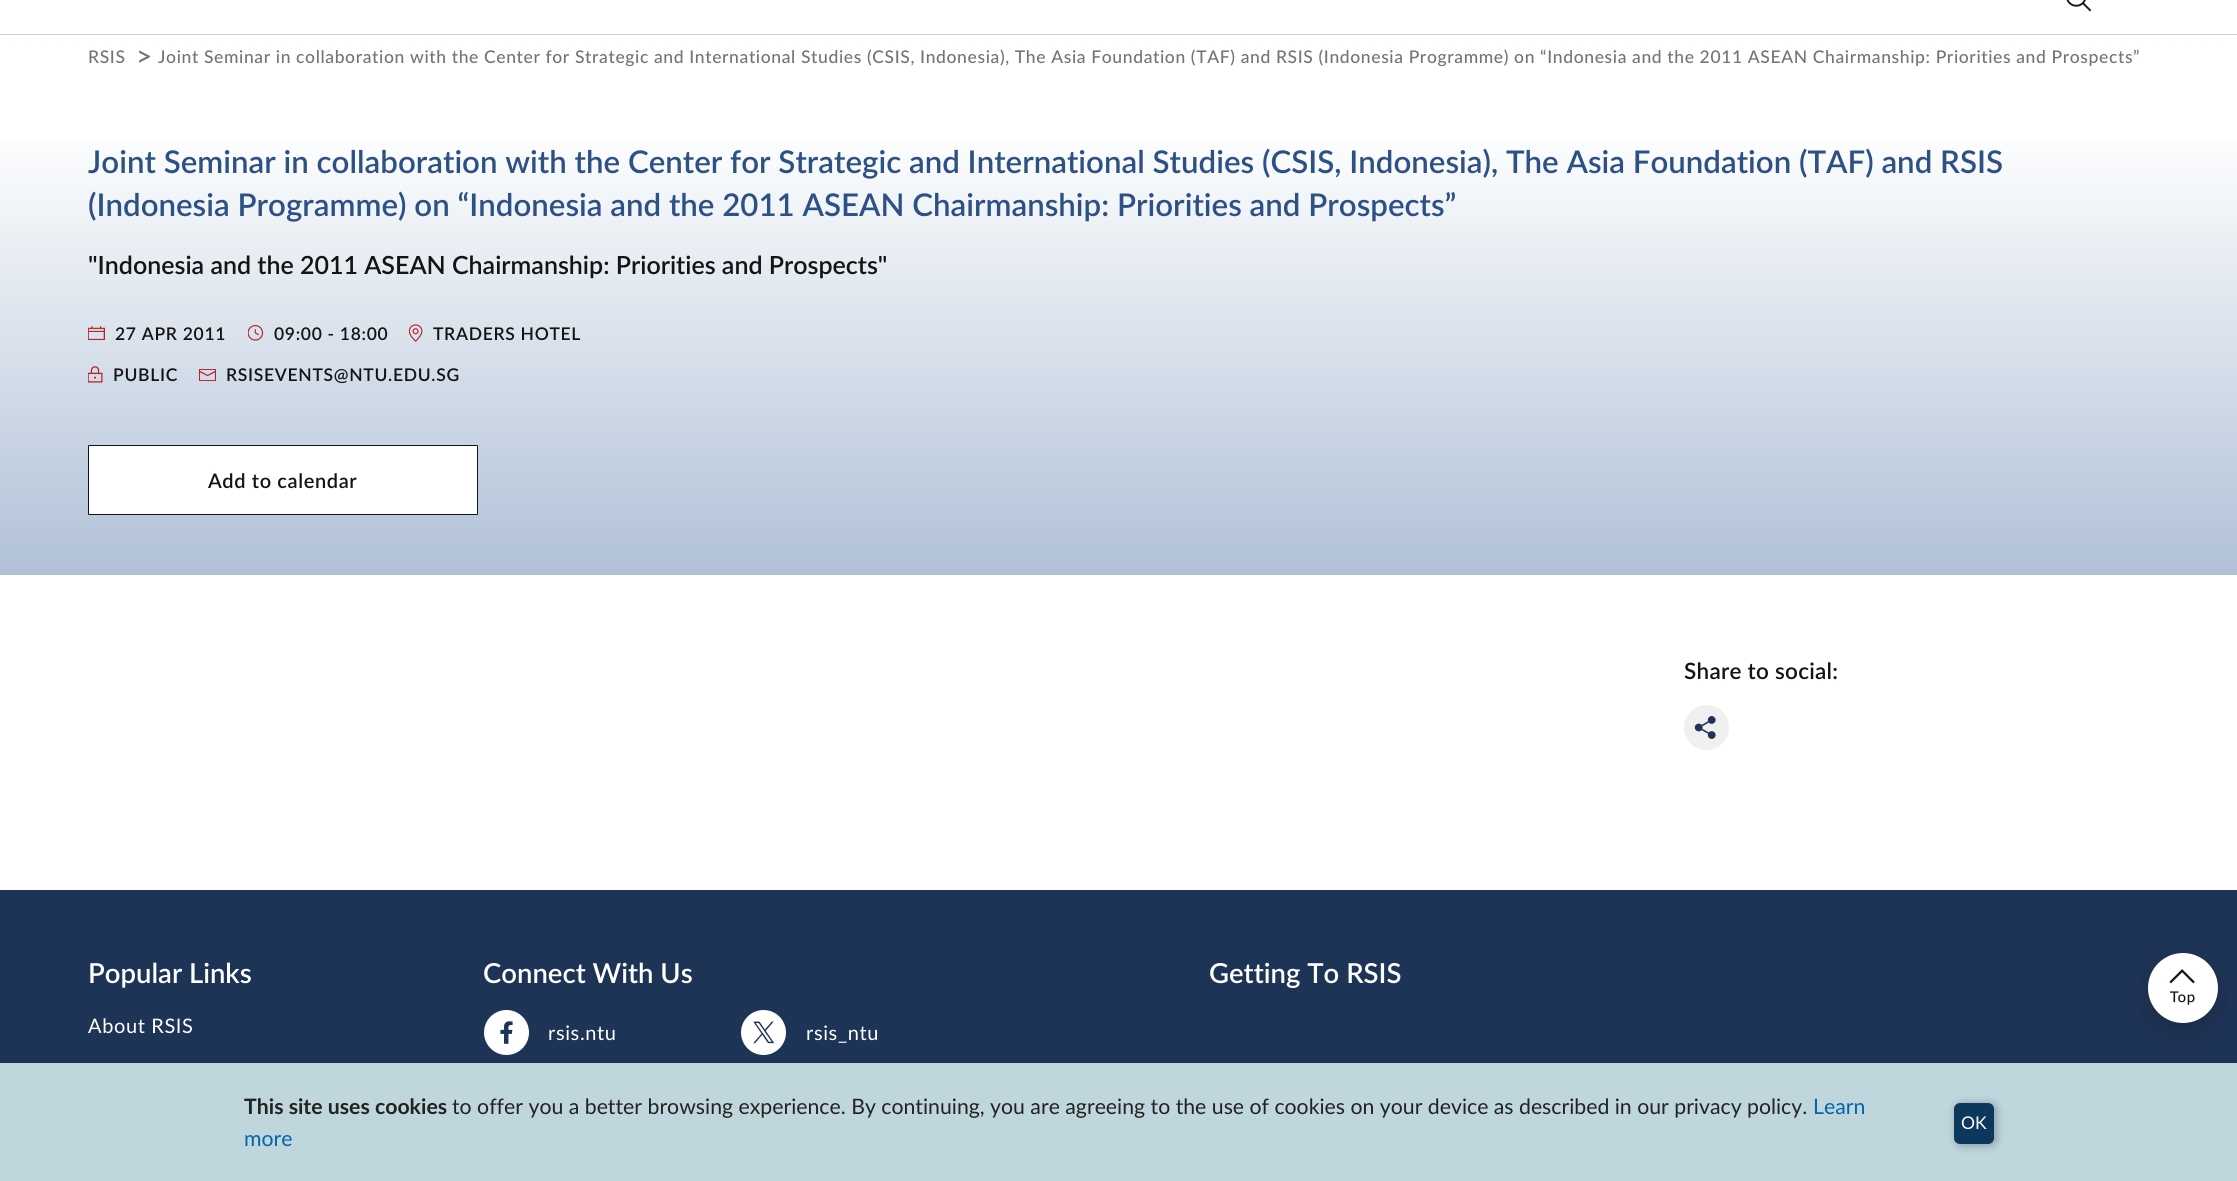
import math
import cairo


def use_color(cr, r, g, b):
  cr.set_source_rgb(r / 255, g / 255, b / 255)

def text(cr, x, y, s, family, size, color, bold=False, italic=False):
  cr.select_font_face(family, cairo.FONT_SLANT_ITALIC if italic else cairo.FONT_SLANT_NORMAL, cairo.FONT_WEIGHT_BOLD if bold else cairo.FONT_WEIGHT_NORMAL)
  cr.set_font_size(size)
  use_color(cr, *color)
  cr.move_to(x, y)
  cr.show_text(s)

def spaced_text(cr, x, y, s, letter, word):
  cr.move_to(x, y)
  for ch in s:
    cr.show_text(ch)
    cr.rel_move_to(letter + word * (ch == ' '), 0)

def box(cr, x, y, w, h, *color):
  use_color(cr, *color)
  cr.rectangle(x, y, w, h)
  cr.fill()

def round_rect(cr, x, y, w, h, r):
  cr.new_sub_path()
  for i, (u, v) in enumerate([(x + w - r, y + h - r), (x + r, y + h - r), (x + r, y + r), (x + w - r, y + r)]):
    cr.arc(u, v, r, i * math.pi / 2, (i + 1) * math.pi / 2)
  cr.close_path()

def shadow(cr, x, y, w, h, r, blur, alpha):
  cr.push_group_with_content(cairo.CONTENT_ALPHA)
  cr.set_operator(cairo.OPERATOR_SOURCE)
  for i in range(15, -16, -2):
    e = blur * i / 6
    if min(w, h) + 2 * e > 0:
      cr.set_source_rgba(0, 0, 0, alpha * math.erfc((i - 1) / 8.5) / 2)
      round_rect(cr, x - e, y - e, w + 2 * e, h + 2 * e, max(0, min(r + e + blur * .6, min(w, h) / 2 + e)))
      cr.fill()
  cr.mask(cr.pop_group())

def picture(cr, path, x, y, w, h):
  cr.save()
  cr.set_source_surface(cairo.ImageSurface.create_from_png(path), x, y)
  cr.rectangle(x, y, w, h)
  cr.fill()
  cr.restore()

def draw(cr):
  use_color(cr, 255, 255, 255)
  cr.paint()
  box(cr, 0, 34, 2237, 1, 208, 209, 209)
  picture(cr, "img_01.png", 2066, 0, 25, 12)
  gradient = cairo.LinearGradient(1119, 575, 1119, 77)
  gradient.add_color_stop_rgba(0, 0.69, 0.757, 0.843, 1)
  gradient.add_color_stop_rgba(0.9, 1, 1, 1, 1)
  cr.set_source(gradient)
  cr.rectangle(0, 141, 2237, 434)
  cr.fill()
  picture(cr, "img_02.png", 88, 326, 17, 14)
  picture(cr, "img_03.png", 248, 325, 16, 16)
  picture(cr, "img_04.png", 409, 324, 14, 18)
  picture(cr, "img_05.png", 88, 366, 15, 17)
  picture(cr, "img_06.png", 199, 369, 17, 12)
  use_color(cr, 255, 255, 255)
  round_rect(cr, 88.5, 445.5, 389, 69, 0.5)
  cr.fill_preserve()
  use_color(cr, 21, 19, 19)
  cr.set_line_width(1)
  cr.stroke()
  use_color(cr, 240, 240, 240)
  cr.arc(1706.5, 727.5, 22.5, 0, 2 * math.pi)
  cr.fill()
  picture(cr, "img_07.png", 1694, 716, 22, 23)
  box(cr, 0, 890, 2237, 173, 30, 52, 87)
  picture(cr, "img_08.png", 484, 1010, 45, 45)
  picture(cr, "img_09.png", 741, 1010, 45, 45)
  use_color(cr, 21, 19, 19)
  shadow(cr, 2145, 960, 75, 75, 37.5, 10, 0.22)
  use_color(cr, 255, 255, 255)
  cr.arc(2183, 988, 35, 0, 2 * math.pi)
  cr.fill()
  picture(cr, "img_10.png", 2169, 969, 26, 36)
  box(cr, 0, 1063, 2237, 118, 191, 214, 221)
  use_color(cr, 0, 0, 0)
  shadow(cr, 1956, 1104, 40, 41, 6, 4.5, 0.31)
  use_color(cr, 11, 56, 92)
  round_rect(cr, 1954, 1103, 40, 41, 6)
  cr.fill()
  cr.select_font_face("Lato Medium")
  cr.set_font_size(17.5)
  use_color(cr, 115, 116, 117)
  spaced_text(cr, 88, 63, "RSIS", 0.62, 0)
  cr.set_font_size(28)
  spaced_text(cr, 136, 66, ">", -3, 0)
  cr.set_font_size(17.5)
  spaced_text(cr, 158, 63, "Joint Seminar in collaboration with the Center for Strategic and International Studies (CSIS, Indonesia), The Asia Foundation (TAF) and RSIS (Indonesia Programme) on “Indonesia and the 2011 ASEAN Chairmanship: Priorities and Prospects”", 0.62, 0)
  text(cr, 88, 173, "Joint Seminar in collaboration with the Center for Strategic and International Studies (CSIS, Indonesia), The Asia Foundation (TAF) and RSIS", "Lato SemiBold", 31.25, (46, 81, 133))
  text(cr, 88, 216, "(Indonesia Programme) on “Indonesia and the 2011 ASEAN Chairmanship: Priorities and Prospects”", "Lato SemiBold", 31.25, (46, 81, 133))
  text(cr, 88, 274, "\"Indonesia and the 2011 ASEAN Chairmanship: Priorities and Prospects\"", "Lato SemiBold", 25, (21, 19, 19))
  cr.set_font_size(17.5)
  spaced_text(cr, 115, 340, "27 APR 2011", 0.7, 0)
  spaced_text(cr, 274, 340, "09:00 - 18:00", 0.7, 0)
  spaced_text(cr, 433, 340, "TRADERS HOTEL", 0.7, 0)
  spaced_text(cr, 113, 381, "PUBLIC", 0.7, 0)
  spaced_text(cr, 226, 381, "RSISEVENTS@NTU.EDU.SG", 0.7, 0)
  cr.set_font_size(20)
  spaced_text(cr, 208, 488, "Add to calendar", 0.62, 0)
  cr.set_font_size(22.5)
  spaced_text(cr, 1684, 679, "Share to social:", 0.25, 0)
  text(cr, 88, 983, "Popular Links", "Lato SemiBold", 27.5, (255, 255, 255))
  cr.select_font_face("Lato")
  cr.set_font_size(20)
  spaced_text(cr, 88, 1033, "About RSIS", 0.62, 0)
  text(cr, 483, 983, "Connect With Us", "Lato SemiBold", 27.5, (255, 255, 255))
  cr.select_font_face("Lato")
  cr.set_font_size(20)
  spaced_text(cr, 548, 1040, "rsis.ntu", 0.62, 0)
  spaced_text(cr, 806, 1040, "rsis_ntu", 0.62, 0)
  text(cr, 1209, 983, "Getting To RSIS", "Lato SemiBold", 27.5, (255, 255, 255))
  text(cr, 244, 1114, "This site uses cookies", "Lato", 21.25, (34, 34, 34), bold=True)
  text(cr, 452, 1114, "to offer you a better browsing experience. By continuing, you are agreeing to the use of cookies on your device as described in our privacy policy.", "Lato", 21.25, (34, 34, 34))
  text(cr, 1813, 1114, "Learn", "Lato", 21.25, (3, 100, 168))
  text(cr, 244, 1146, "more", "Lato", 21.25, (3, 100, 168))
  text(cr, 1961, 1129, "OK", "Lato", 17.5, (255, 255, 255))


surface = cairo.ImageSurface(cairo.FORMAT_RGB24, 2237, 1181)
cr = cairo.Context(surface)
options = cairo.FontOptions()
options.set_hint_metrics(cairo.HINT_METRICS_OFF)
options.set_hint_style(cairo.HINT_STYLE_NONE)
cr.set_font_options(options)
cr.set_miter_limit(4)
draw(cr)
surface.write_to_png("out.png")
